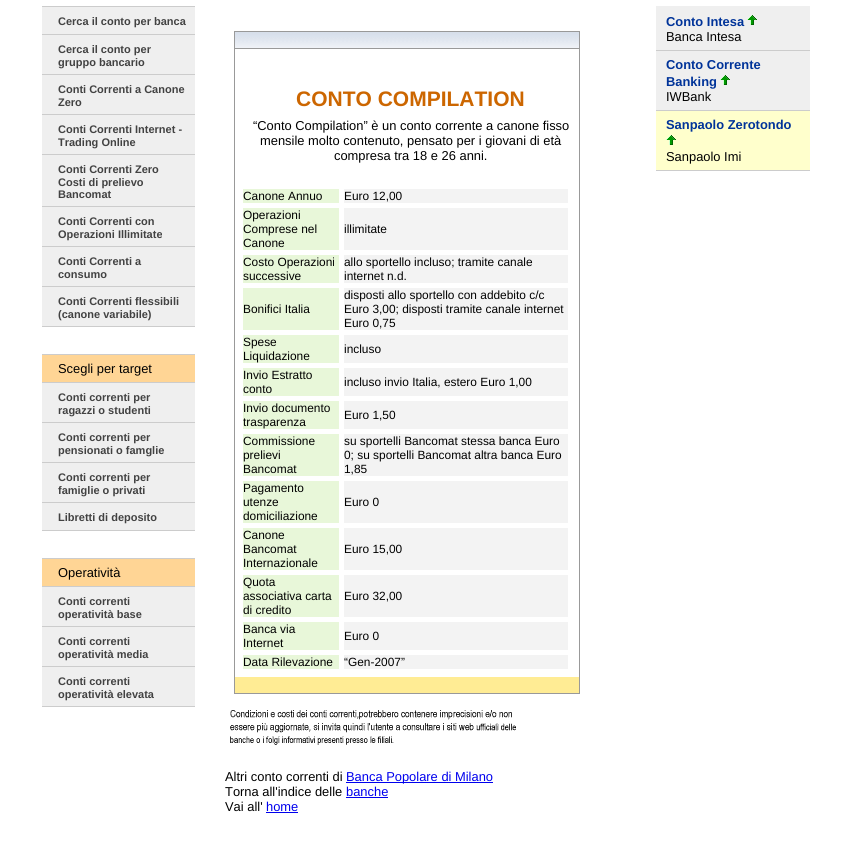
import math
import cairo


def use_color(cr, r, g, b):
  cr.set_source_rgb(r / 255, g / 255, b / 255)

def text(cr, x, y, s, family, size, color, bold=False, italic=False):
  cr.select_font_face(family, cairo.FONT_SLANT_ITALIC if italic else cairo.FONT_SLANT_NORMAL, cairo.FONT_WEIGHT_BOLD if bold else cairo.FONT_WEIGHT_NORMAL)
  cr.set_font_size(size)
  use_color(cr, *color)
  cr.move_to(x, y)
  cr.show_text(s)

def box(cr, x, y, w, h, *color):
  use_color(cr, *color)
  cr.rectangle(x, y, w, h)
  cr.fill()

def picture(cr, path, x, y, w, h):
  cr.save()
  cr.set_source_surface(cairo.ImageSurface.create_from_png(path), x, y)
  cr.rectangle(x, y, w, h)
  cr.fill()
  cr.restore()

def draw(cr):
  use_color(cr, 255, 255, 255)
  cr.paint()
  box(cr, 42, 7, 153, 27, 239, 239, 239)
  box(cr, 42, 6, 153, 1, 204, 204, 204)
  box(cr, 42, 34, 153, 1, 204, 204, 204)
  box(cr, 42, 35, 153, 39, 239, 239, 239)
  box(cr, 42, 74, 153, 1, 204, 204, 204)
  box(cr, 42, 75, 153, 39, 239, 239, 239)
  box(cr, 42, 114, 153, 1, 204, 204, 204)
  box(cr, 42, 115, 153, 39, 239, 239, 239)
  box(cr, 42, 154, 153, 1, 204, 204, 204)
  box(cr, 42, 155, 153, 51, 239, 239, 239)
  box(cr, 42, 206, 153, 1, 204, 204, 204)
  box(cr, 42, 207, 153, 39, 239, 239, 239)
  box(cr, 42, 246, 153, 1, 204, 204, 204)
  box(cr, 42, 247, 153, 39, 239, 239, 239)
  box(cr, 42, 286, 153, 1, 204, 204, 204)
  box(cr, 42, 287, 153, 39, 239, 239, 239)
  box(cr, 42, 326, 153, 1, 204, 204, 204)
  box(cr, 42, 354, 153, 1, 204, 204, 204)
  box(cr, 42, 355, 153, 27, 255, 213, 149)
  box(cr, 42, 382, 153, 1, 204, 204, 204)
  box(cr, 42, 383, 153, 39, 239, 239, 239)
  box(cr, 42, 422, 153, 1, 204, 204, 204)
  box(cr, 42, 423, 153, 39, 239, 239, 239)
  box(cr, 42, 462, 153, 1, 204, 204, 204)
  box(cr, 42, 463, 153, 39, 239, 239, 239)
  box(cr, 42, 502, 153, 1, 204, 204, 204)
  box(cr, 42, 503, 153, 27, 239, 239, 239)
  box(cr, 42, 530, 153, 1, 204, 204, 204)
  box(cr, 42, 558, 153, 1, 204, 204, 204)
  box(cr, 42, 559, 153, 27, 255, 213, 149)
  box(cr, 42, 586, 153, 1, 204, 204, 204)
  box(cr, 42, 587, 153, 39, 239, 239, 239)
  box(cr, 42, 626, 153, 1, 204, 204, 204)
  box(cr, 42, 627, 153, 39, 239, 239, 239)
  box(cr, 42, 666, 153, 1, 204, 204, 204)
  box(cr, 42, 667, 153, 39, 239, 239, 239)
  box(cr, 42, 706, 153, 1, 204, 204, 204)
  cr.rectangle(234.5, 31.5, 345, 662)
  use_color(cr, 153, 153, 153)
  cr.set_line_width(1)
  cr.stroke()
  picture(cr, "img_01.png", 235, 32, 344, 16)
  box(cr, 235, 48, 344, 1, 153, 153, 153)
  box(cr, 243, 189, 96, 14, 232, 247, 217)
  box(cr, 344, 189, 224, 14, 243, 243, 243)
  box(cr, 243, 208, 96, 42, 232, 247, 217)
  box(cr, 344, 208, 224, 42, 243, 243, 243)
  box(cr, 243, 255, 96, 28, 232, 247, 217)
  box(cr, 344, 255, 224, 28, 243, 243, 243)
  box(cr, 243, 288, 96, 42, 232, 247, 217)
  box(cr, 344, 288, 224, 42, 243, 243, 243)
  box(cr, 243, 335, 96, 28, 232, 247, 217)
  box(cr, 344, 335, 224, 28, 243, 243, 243)
  box(cr, 243, 368, 96, 28, 232, 247, 217)
  box(cr, 344, 368, 224, 28, 243, 243, 243)
  box(cr, 243, 401, 96, 28, 232, 247, 217)
  box(cr, 344, 401, 224, 28, 243, 243, 243)
  box(cr, 243, 434, 96, 42, 232, 247, 217)
  box(cr, 344, 434, 224, 42, 243, 243, 243)
  box(cr, 243, 481, 96, 42, 232, 247, 217)
  box(cr, 344, 481, 224, 42, 243, 243, 243)
  box(cr, 243, 528, 96, 42, 232, 247, 217)
  box(cr, 344, 528, 224, 42, 243, 243, 243)
  box(cr, 243, 575, 96, 42, 232, 247, 217)
  box(cr, 344, 575, 224, 42, 243, 243, 243)
  box(cr, 243, 622, 96, 28, 232, 247, 217)
  box(cr, 344, 622, 224, 28, 243, 243, 243)
  box(cr, 243, 655, 96, 14, 232, 247, 217)
  box(cr, 344, 655, 224, 14, 243, 243, 243)
  box(cr, 235, 677, 344, 16, 255, 236, 148)
  picture(cr, "img_02.png", 230, 710, 286, 35)
  box(cr, 346, 782, 147, 1, 0, 0, 238)
  box(cr, 346, 797, 42, 1, 0, 0, 238)
  box(cr, 266, 812, 32, 1, 0, 0, 238)
  box(cr, 656, 6, 154, 44, 239, 239, 239)
  box(cr, 656, 50, 154, 1, 204, 204, 204)
  picture(cr, "img_03.png", 747, 15, 10, 10)
  box(cr, 656, 51, 154, 59, 239, 239, 239)
  box(cr, 656, 110, 154, 1, 204, 204, 204)
  picture(cr, "img_03.png", 720, 75, 10, 10)
  box(cr, 656, 111, 154, 59, 255, 255, 204)
  box(cr, 656, 170, 154, 1, 204, 204, 204)
  picture(cr, "img_04.png", 666, 135, 10, 10)
  text(cr, 58, 25, "Cerca il conto per banca", "Liberation Sans", 11, (66, 66, 66), bold=True)
  text(cr, 58, 53, "Cerca il conto per", "Liberation Sans", 11, (66, 66, 66), bold=True)
  text(cr, 58, 66, "gruppo bancario", "Liberation Sans", 11, (66, 66, 66), bold=True)
  text(cr, 58, 93, "Conti Correnti a Canone", "Liberation Sans", 11, (66, 66, 66), bold=True)
  text(cr, 58, 106, "Zero", "Liberation Sans", 11, (66, 66, 66), bold=True)
  text(cr, 58, 133, "Conti Correnti Internet -", "Liberation Sans", 11, (66, 66, 66), bold=True)
  text(cr, 58, 146, "Trading Online", "Liberation Sans", 11, (66, 66, 66), bold=True)
  text(cr, 58, 173, "Conti Correnti Zero", "Liberation Sans", 11, (66, 66, 66), bold=True)
  text(cr, 58, 186, "Costi di prelievo", "Liberation Sans", 11, (66, 66, 66), bold=True)
  text(cr, 58, 198, "Bancomat", "Liberation Sans", 11, (66, 66, 66), bold=True)
  text(cr, 58, 225, "Conti Correnti con", "Liberation Sans", 11, (66, 66, 66), bold=True)
  text(cr, 58, 238, "Operazioni Illimitate", "Liberation Sans", 11, (66, 66, 66), bold=True)
  text(cr, 58, 265, "Conti Correnti a", "Liberation Sans", 11, (66, 66, 66), bold=True)
  text(cr, 58, 278, "consumo", "Liberation Sans", 11, (66, 66, 66), bold=True)
  text(cr, 58, 305, "Conti Correnti flessibili", "Liberation Sans", 11, (66, 66, 66), bold=True)
  text(cr, 58, 318, "(canone variabile)", "Liberation Sans", 11, (66, 66, 66), bold=True)
  text(cr, 58, 373, "Scegli per target", "Liberation Sans", 12.9, (0, 0, 0))
  text(cr, 58, 401, "Conti correnti per", "Liberation Sans", 11, (66, 66, 66), bold=True)
  text(cr, 58, 414, "ragazzi o studenti", "Liberation Sans", 11, (66, 66, 66), bold=True)
  text(cr, 58, 441, "Conti correnti per", "Liberation Sans", 11, (66, 66, 66), bold=True)
  text(cr, 58, 454, "pensionati o famglie", "Liberation Sans", 11, (66, 66, 66), bold=True)
  text(cr, 58, 481, "Conti correnti per", "Liberation Sans", 11, (66, 66, 66), bold=True)
  text(cr, 58, 494, "famiglie o privati", "Liberation Sans", 11, (66, 66, 66), bold=True)
  text(cr, 58, 521, "Libretti di deposito", "Liberation Sans", 11, (66, 66, 66), bold=True)
  text(cr, 58, 577, "Operatività", "Liberation Sans", 12.9, (0, 0, 0))
  text(cr, 58, 605, "Conti correnti", "Liberation Sans", 11, (66, 66, 66), bold=True)
  text(cr, 58, 618, "operatività base", "Liberation Sans", 11, (66, 66, 66), bold=True)
  text(cr, 58, 645, "Conti correnti", "Liberation Sans", 11, (66, 66, 66), bold=True)
  text(cr, 58, 658, "operatività media", "Liberation Sans", 11, (66, 66, 66), bold=True)
  text(cr, 58, 685, "Conti correnti", "Liberation Sans", 11, (66, 66, 66), bold=True)
  text(cr, 58, 698, "operatività elevata", "Liberation Sans", 11, (66, 66, 66), bold=True)
  text(cr, 296, 106, "CONTO COMPILATION", "Liberation Sans", 21, (204, 102, 0), bold=True)
  text(cr, 253, 130, "“Conto Compilation” è un conto corrente a canone fisso", "Liberation Sans", 12.9, (0, 0, 0))
  text(cr, 260, 145, "mensile molto contenuto, pensato per i giovani di età", "Liberation Sans", 12.9, (0, 0, 0))
  text(cr, 334, 160, "compresa tra 18 e 26 anni.", "Liberation Sans", 12.9, (0, 0, 0))
  text(cr, 243, 200, "Canone Annuo", "Liberation Sans", 11.9, (0, 0, 0))
  text(cr, 344, 200, "Euro 12,00", "Liberation Sans", 11.9, (0, 0, 0))
  text(cr, 243, 219, "Operazioni", "Liberation Sans", 11.9, (0, 0, 0))
  text(cr, 243, 233, "Comprese nel", "Liberation Sans", 11.9, (0, 0, 0))
  text(cr, 243, 247, "Canone", "Liberation Sans", 11.9, (0, 0, 0))
  text(cr, 344, 233, "illimitate", "Liberation Sans", 11.9, (0, 0, 0))
  text(cr, 243, 266, "Costo Operazioni", "Liberation Sans", 11.9, (0, 0, 0))
  text(cr, 243, 280, "successive", "Liberation Sans", 11.9, (0, 0, 0))
  text(cr, 344, 266, "allo sportello incluso; tramite canale", "Liberation Sans", 11.9, (0, 0, 0))
  text(cr, 344, 280, "internet n.d.", "Liberation Sans", 11.9, (0, 0, 0))
  text(cr, 243, 313, "Bonifici Italia", "Liberation Sans", 11.9, (0, 0, 0))
  text(cr, 344, 299, "disposti allo sportello con addebito c/c", "Liberation Sans", 11.9, (0, 0, 0))
  text(cr, 344, 313, "Euro 3,00; disposti tramite canale internet", "Liberation Sans", 11.9, (0, 0, 0))
  text(cr, 344, 327, "Euro 0,75", "Liberation Sans", 11.9, (0, 0, 0))
  text(cr, 243, 346, "Spese", "Liberation Sans", 11.9, (0, 0, 0))
  text(cr, 243, 360, "Liquidazione", "Liberation Sans", 11.9, (0, 0, 0))
  text(cr, 344, 353, "incluso", "Liberation Sans", 11.9, (0, 0, 0))
  text(cr, 243, 379, "Invio Estratto", "Liberation Sans", 11.9, (0, 0, 0))
  text(cr, 243, 393, "conto", "Liberation Sans", 11.9, (0, 0, 0))
  text(cr, 344, 386, "incluso invio Italia, estero Euro 1,00", "Liberation Sans", 11.9, (0, 0, 0))
  text(cr, 243, 412, "Invio documento", "Liberation Sans", 11.9, (0, 0, 0))
  text(cr, 243, 426, "trasparenza", "Liberation Sans", 11.9, (0, 0, 0))
  text(cr, 344, 419, "Euro 1,50", "Liberation Sans", 11.9, (0, 0, 0))
  text(cr, 243, 445, "Commissione", "Liberation Sans", 11.9, (0, 0, 0))
  text(cr, 243, 459, "prelievi", "Liberation Sans", 11.9, (0, 0, 0))
  text(cr, 243, 473, "Bancomat", "Liberation Sans", 11.9, (0, 0, 0))
  text(cr, 344, 445, "su sportelli Bancomat stessa banca Euro", "Liberation Sans", 11.9, (0, 0, 0))
  text(cr, 344, 459, "0; su sportelli Bancomat altra banca Euro", "Liberation Sans", 11.9, (0, 0, 0))
  text(cr, 344, 473, "1,85", "Liberation Sans", 11.9, (0, 0, 0))
  text(cr, 243, 492, "Pagamento", "Liberation Sans", 11.9, (0, 0, 0))
  text(cr, 243, 506, "utenze", "Liberation Sans", 11.9, (0, 0, 0))
  text(cr, 243, 520, "domiciliazione", "Liberation Sans", 11.9, (0, 0, 0))
  text(cr, 344, 506, "Euro 0", "Liberation Sans", 11.9, (0, 0, 0))
  text(cr, 243, 539, "Canone", "Liberation Sans", 11.9, (0, 0, 0))
  text(cr, 243, 553, "Bancomat", "Liberation Sans", 11.9, (0, 0, 0))
  text(cr, 243, 567, "Internazionale", "Liberation Sans", 11.9, (0, 0, 0))
  text(cr, 344, 553, "Euro 15,00", "Liberation Sans", 11.9, (0, 0, 0))
  text(cr, 243, 586, "Quota", "Liberation Sans", 11.9, (0, 0, 0))
  text(cr, 243, 600, "associativa carta", "Liberation Sans", 11.9, (0, 0, 0))
  text(cr, 243, 614, "di credito", "Liberation Sans", 11.9, (0, 0, 0))
  text(cr, 344, 600, "Euro 32,00", "Liberation Sans", 11.9, (0, 0, 0))
  text(cr, 243, 633, "Banca via", "Liberation Sans", 11.9, (0, 0, 0))
  text(cr, 243, 647, "Internet", "Liberation Sans", 11.9, (0, 0, 0))
  text(cr, 344, 640, "Euro 0", "Liberation Sans", 11.9, (0, 0, 0))
  text(cr, 243, 666, "Data Rilevazione", "Liberation Sans", 11.9, (0, 0, 0))
  text(cr, 344, 666, "“Gen-2007”", "Liberation Sans", 11.9, (0, 0, 0))
  text(cr, 225, 781, "Altri conto correnti di", "Liberation Sans", 12.9, (0, 0, 0))
  text(cr, 346, 781, "Banca Popolare di Milano", "Liberation Sans", 12.9, (0, 0, 238))
  text(cr, 225, 796, "Torna all'indice delle", "Liberation Sans", 12.9, (0, 0, 0))
  text(cr, 346, 796, "banche", "Liberation Sans", 12.9, (0, 0, 238))
  text(cr, 225, 811, "Vai all'", "Liberation Sans", 12.9, (0, 0, 0))
  text(cr, 266, 811, "home", "Liberation Sans", 12.9, (0, 0, 238))
  text(cr, 666, 26, "Conto Intesa", "Liberation Sans", 12.9, (0, 51, 153), bold=True)
  text(cr, 666, 41, "Banca Intesa", "Liberation Sans", 12.9, (0, 0, 0))
  text(cr, 666, 69, "Conto Corrente", "Liberation Sans", 12.9, (0, 51, 153), bold=True)
  text(cr, 666, 86, "Banking", "Liberation Sans", 12.9, (0, 51, 153), bold=True)
  text(cr, 666, 101, "IWBank", "Liberation Sans", 12.9, (0, 0, 0))
  text(cr, 666, 129, "Sanpaolo Zerotondo", "Liberation Sans", 12.9, (0, 51, 153), bold=True)
  text(cr, 666, 161, "Sanpaolo Imi", "Liberation Sans", 12.9, (0, 0, 0))


surface = cairo.ImageSurface(cairo.FORMAT_RGB24, 851, 861)
cr = cairo.Context(surface)
options = cairo.FontOptions()
options.set_hint_metrics(cairo.HINT_METRICS_OFF)
options.set_hint_style(cairo.HINT_STYLE_NONE)
cr.set_font_options(options)
cr.set_miter_limit(4)
draw(cr)
surface.write_to_png("out.png")
